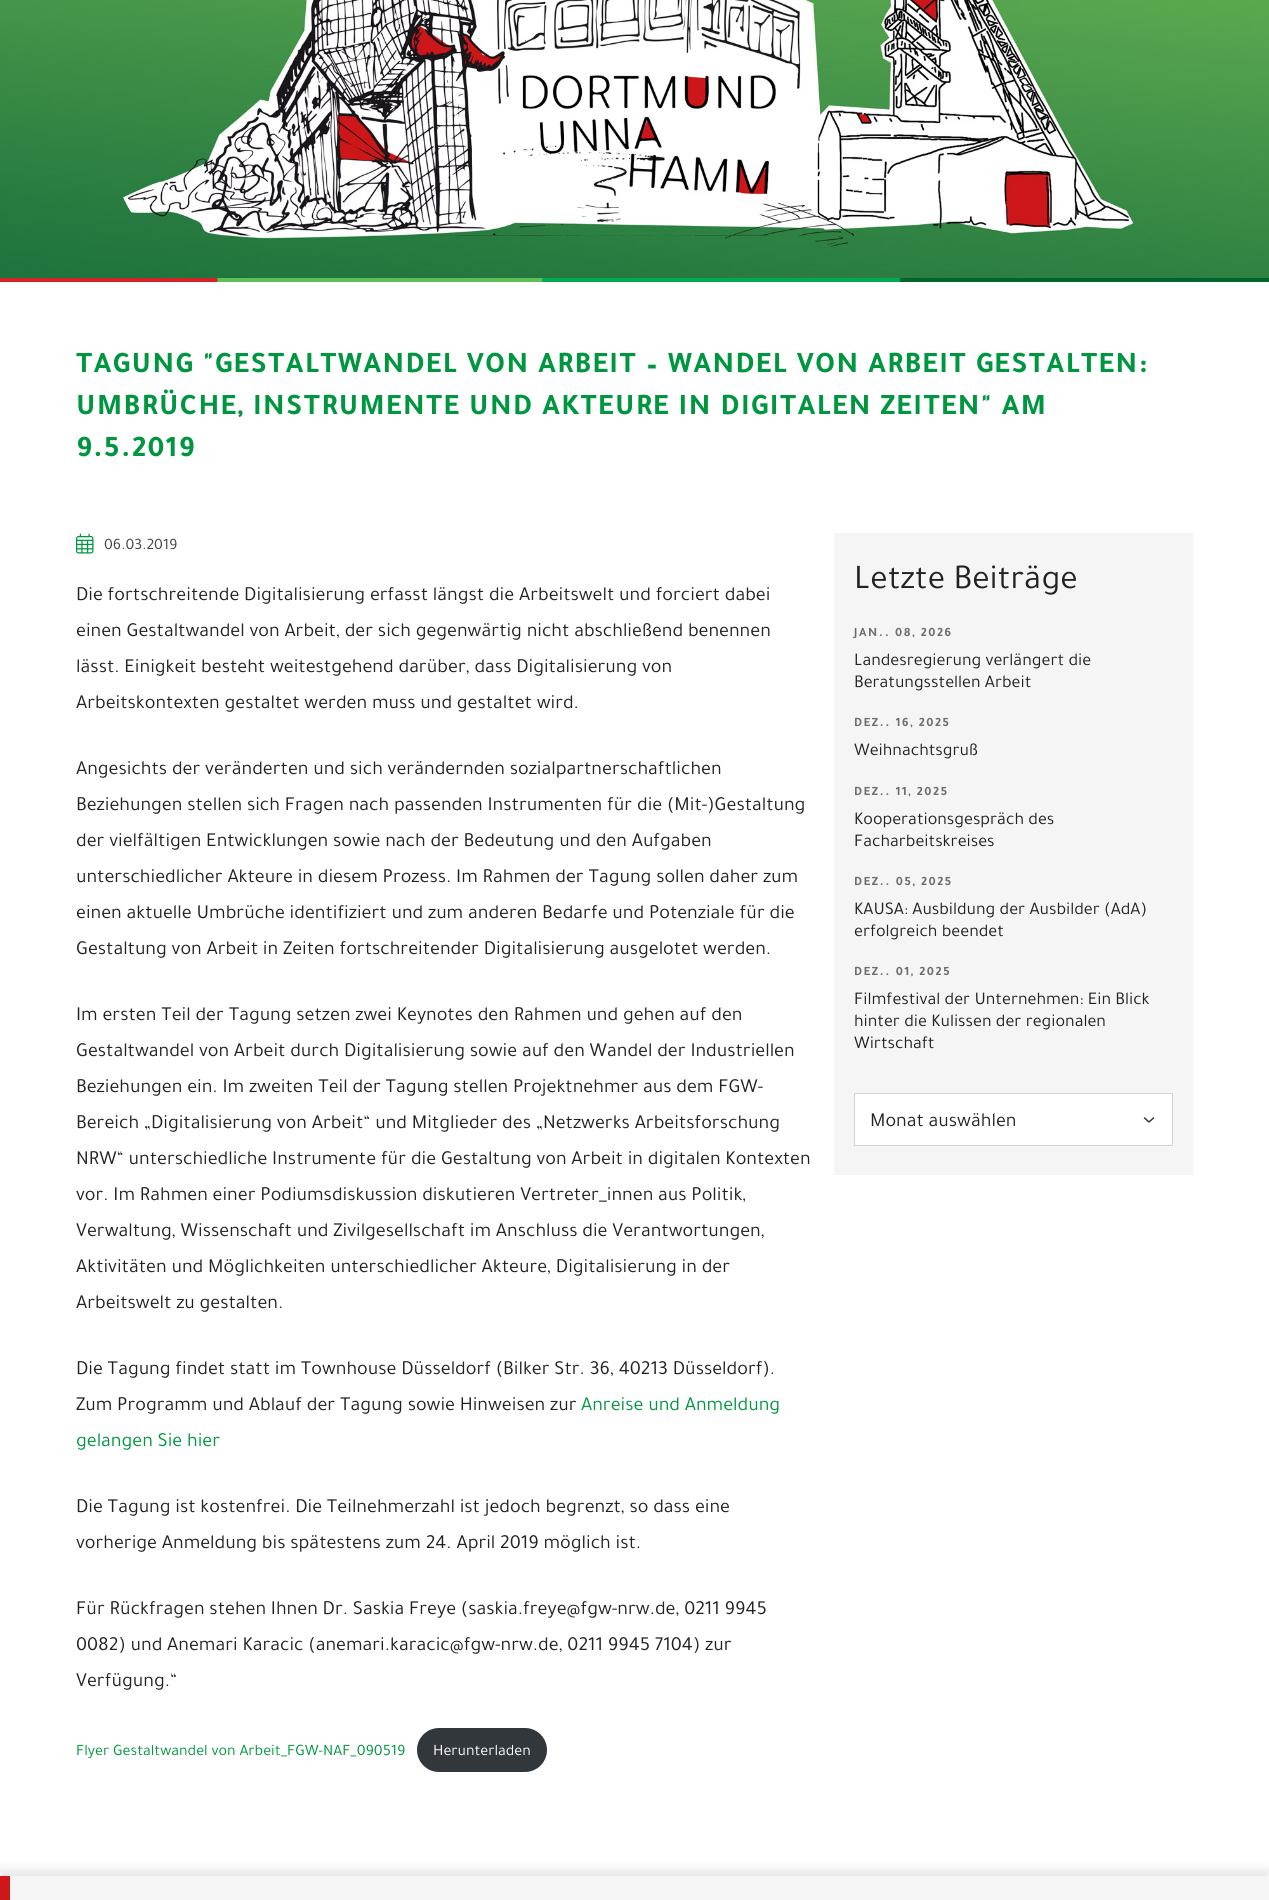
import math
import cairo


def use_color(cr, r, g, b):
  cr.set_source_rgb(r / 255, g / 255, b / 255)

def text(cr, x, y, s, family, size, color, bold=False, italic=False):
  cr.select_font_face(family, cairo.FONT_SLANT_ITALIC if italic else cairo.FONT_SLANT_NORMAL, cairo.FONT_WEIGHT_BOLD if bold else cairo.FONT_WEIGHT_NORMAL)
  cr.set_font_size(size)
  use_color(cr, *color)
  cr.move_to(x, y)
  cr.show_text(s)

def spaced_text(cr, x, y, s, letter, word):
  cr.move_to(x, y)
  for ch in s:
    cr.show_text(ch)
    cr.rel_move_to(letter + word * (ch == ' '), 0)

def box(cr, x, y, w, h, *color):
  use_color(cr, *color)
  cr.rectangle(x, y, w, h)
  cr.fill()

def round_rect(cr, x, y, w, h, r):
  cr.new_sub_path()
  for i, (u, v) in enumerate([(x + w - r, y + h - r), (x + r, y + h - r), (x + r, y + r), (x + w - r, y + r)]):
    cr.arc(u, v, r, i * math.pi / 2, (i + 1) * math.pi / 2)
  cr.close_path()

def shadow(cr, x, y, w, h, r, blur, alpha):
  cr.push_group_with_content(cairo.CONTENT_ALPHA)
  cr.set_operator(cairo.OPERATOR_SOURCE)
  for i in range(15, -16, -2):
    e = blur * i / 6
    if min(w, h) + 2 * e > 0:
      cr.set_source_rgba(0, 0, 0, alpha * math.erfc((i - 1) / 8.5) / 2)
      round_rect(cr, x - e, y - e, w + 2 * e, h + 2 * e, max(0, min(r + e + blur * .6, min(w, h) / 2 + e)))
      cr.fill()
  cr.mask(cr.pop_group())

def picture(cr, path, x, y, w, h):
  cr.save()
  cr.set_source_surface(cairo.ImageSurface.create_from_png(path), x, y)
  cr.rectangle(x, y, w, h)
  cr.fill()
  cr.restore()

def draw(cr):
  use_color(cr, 255, 255, 255)
  cr.paint()
  picture(cr, "img_01.png", 0, 0, 1269, 278)
  picture(cr, "img_02.png", 0, 278, 1269, 4)
  picture(cr, "img_03.png", 76, 533, 18, 21)
  use_color(cr, 50, 55, 60)
  round_rect(cr, 417, 1728, 130, 44, 22)
  cr.fill()
  box(cr, 834, 533, 359, 642, 245, 245, 245)
  box(cr, 855, 1094, 317, 51, 255, 255, 255)
  cr.new_path()
  cr.move_to(1144.5, 1118)
  cr.line_to(1149, 1122)
  cr.line_to(1153.5, 1118)
  use_color(cr, 52, 58, 64)
  cr.set_line_width(1.5)
  cr.set_line_cap(cairo.LINE_CAP_ROUND)
  cr.set_line_join(cairo.LINE_JOIN_ROUND)
  cr.stroke()
  cr.rectangle(854.5, 1093.5, 318, 52)
  use_color(cr, 206, 212, 218)
  cr.set_line_width(1)
  cr.set_line_cap(cairo.LINE_CAP_BUTT)
  cr.set_line_join(cairo.LINE_JOIN_MITER)
  cr.stroke()
  use_color(cr, 0, 0, 0)
  shadow(cr, 0, 1870, 1269, 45, 0, 5, 0.1)
  box(cr, 10, 1876, 1259, 24, 245, 245, 245)
  box(cr, 0, 1876, 10, 24, 205, 23, 25)
  cr.select_font_face("Tajawal", cairo.FONT_SLANT_NORMAL, cairo.FONT_WEIGHT_BOLD)
  cr.set_font_size(30)
  use_color(cr, 0, 150, 64)
  spaced_text(cr, 76, 372, "TAGUNG \"GESTALTWANDEL VON ARBEIT – WANDEL VON ARBEIT GESTALTEN:", 1.5, 0)
  spaced_text(cr, 76, 414, "UMBRÜCHE, INSTRUMENTE UND AKTEURE IN DIGITALEN ZEITEN\" AM", 1.5, 0)
  spaced_text(cr, 76, 456, "9.5.2019", 1.5, 0)
  text(cr, 104, 549, "06.03.2019", "Tajawal", 16, (68, 68, 68))
  text(cr, 76, 600, "Die fortschreitende Digitalisierung erfasst längst die Arbeitswelt und forciert dabei", "Tajawal", 20, (34, 34, 34))
  text(cr, 76, 636, "einen Gestaltwandel von Arbeit, der sich gegenwärtig nicht abschließend benennen", "Tajawal", 20, (34, 34, 34))
  text(cr, 76, 672, "lässt. Einigkeit besteht weitestgehend darüber, dass Digitalisierung von", "Tajawal", 20, (34, 34, 34))
  text(cr, 76, 708, "Arbeitskontexten gestaltet werden muss und gestaltet wird.", "Tajawal", 20, (34, 34, 34))
  text(cr, 76, 774, "Angesichts der veränderten und sich verändernden sozialpartnerschaftlichen", "Tajawal", 20, (34, 34, 34))
  text(cr, 76, 810, "Beziehungen stellen sich Fragen nach passenden Instrumenten für die (Mit-)Gestaltung", "Tajawal", 20, (34, 34, 34))
  text(cr, 76, 846, "der vielfältigen Entwicklungen sowie nach der Bedeutung und den Aufgaben", "Tajawal", 20, (34, 34, 34))
  text(cr, 76, 882, "unterschiedlicher Akteure in diesem Prozess. Im Rahmen der Tagung sollen daher zum", "Tajawal", 20, (34, 34, 34))
  text(cr, 76, 918, "einen aktuelle Umbrüche identifiziert und zum anderen Bedarfe und Potenziale für die", "Tajawal", 20, (34, 34, 34))
  text(cr, 76, 954, "Gestaltung von Arbeit in Zeiten fortschreitender Digitalisierung ausgelotet werden.", "Tajawal", 20, (34, 34, 34))
  text(cr, 76, 1020, "Im ersten Teil der Tagung setzen zwei Keynotes den Rahmen und gehen auf den", "Tajawal", 20, (34, 34, 34))
  text(cr, 76, 1056, "Gestaltwandel von Arbeit durch Digitalisierung sowie auf den Wandel der Industriellen", "Tajawal", 20, (34, 34, 34))
  text(cr, 76, 1092, "Beziehungen ein. Im zweiten Teil der Tagung stellen Projektnehmer aus dem FGW-", "Tajawal", 20, (34, 34, 34))
  text(cr, 76, 1128, "Bereich „Digitalisierung von Arbeit“ und Mitglieder des „Netzwerks Arbeitsforschung", "Tajawal", 20, (34, 34, 34))
  text(cr, 76, 1164, "NRW“ unterschiedliche Instrumente für die Gestaltung von Arbeit in digitalen Kontexten", "Tajawal", 20, (34, 34, 34))
  text(cr, 76, 1200, "vor. Im Rahmen einer Podiumsdiskussion diskutieren Vertreter_innen aus Politik,", "Tajawal", 20, (34, 34, 34))
  text(cr, 76, 1236, "Verwaltung, Wissenschaft und Zivilgesellschaft im Anschluss die Verantwortungen,", "Tajawal", 20, (34, 34, 34))
  text(cr, 76, 1272, "Aktivitäten und Möglichkeiten unterschiedlicher Akteure, Digitalisierung in der", "Tajawal", 20, (34, 34, 34))
  text(cr, 76, 1308, "Arbeitswelt zu gestalten.", "Tajawal", 20, (34, 34, 34))
  text(cr, 76, 1374, "Die Tagung findet statt im Townhouse Düsseldorf (Bilker Str. 36, 40213 Düsseldorf).", "Tajawal", 20, (34, 34, 34))
  text(cr, 76, 1410, "Zum Programm und Ablauf der Tagung sowie Hinweisen zur", "Tajawal", 20, (34, 34, 34))
  text(cr, 581, 1410, "Anreise und Anmeldung", "Tajawal", 20, (0, 150, 64))
  text(cr, 76, 1446, "gelangen Sie hier", "Tajawal", 20, (0, 150, 64))
  text(cr, 76, 1512, "Die Tagung ist kostenfrei. Die Teilnehmerzahl ist jedoch begrenzt, so dass eine", "Tajawal", 20, (34, 34, 34))
  text(cr, 76, 1548, "vorherige Anmeldung bis spätestens zum 24. April 2019 möglich ist.", "Tajawal", 20, (34, 34, 34))
  text(cr, 76, 1614, "Für Rückfragen stehen Ihnen Dr. Saskia Freye (saskia.freye@fgw-nrw.de, 0211 9945", "Tajawal", 20, (34, 34, 34))
  text(cr, 76, 1650, "0082) und Anemari Karacic (anemari.karacic@fgw-nrw.de, 0211 9945 7104) zur", "Tajawal", 20, (34, 34, 34))
  text(cr, 76, 1686, "Verfügung.“", "Tajawal", 20, (34, 34, 34))
  text(cr, 76, 1755, "Flyer Gestaltwandel von Arbeit_FGW-NAF_090519", "Tajawal", 16, (0, 150, 64))
  text(cr, 433, 1755, "Herunterladen", "Tajawal", 16, (255, 255, 255))
  text(cr, 854, 588, "Letzte Beiträge", "Tajawal", 35, (34, 34, 34))
  cr.select_font_face("Tajawal", cairo.FONT_SLANT_NORMAL, cairo.FONT_WEIGHT_BOLD)
  cr.set_font_size(12.75)
  use_color(cr, 110, 110, 110)
  spaced_text(cr, 854, 636, "JAN.. 08, 2026", 1.6, 0)
  text(cr, 854, 665, "Landesregierung verlängert die", "Tajawal", 18, (34, 34, 34))
  text(cr, 854, 687, "Beratungsstellen Arbeit", "Tajawal", 18, (34, 34, 34))
  cr.select_font_face("Tajawal", cairo.FONT_SLANT_NORMAL, cairo.FONT_WEIGHT_BOLD)
  cr.set_font_size(12.75)
  use_color(cr, 110, 110, 110)
  spaced_text(cr, 854, 726, "DEZ.. 16, 2025", 1.6, 0)
  text(cr, 854, 755, "Weihnachtsgruß", "Tajawal", 18, (34, 34, 34))
  cr.select_font_face("Tajawal", cairo.FONT_SLANT_NORMAL, cairo.FONT_WEIGHT_BOLD)
  cr.set_font_size(12.75)
  use_color(cr, 110, 110, 110)
  spaced_text(cr, 854, 795, "DEZ.. 11, 2025", 1.6, 0)
  text(cr, 854, 824, "Kooperationsgespräch des", "Tajawal", 18, (34, 34, 34))
  text(cr, 854, 846, "Facharbeitskreises", "Tajawal", 18, (34, 34, 34))
  cr.select_font_face("Tajawal", cairo.FONT_SLANT_NORMAL, cairo.FONT_WEIGHT_BOLD)
  cr.set_font_size(12.75)
  use_color(cr, 110, 110, 110)
  spaced_text(cr, 854, 885, "DEZ.. 05, 2025", 1.6, 0)
  text(cr, 854, 914, "KAUSA: Ausbildung der Ausbilder (AdA)", "Tajawal", 18, (34, 34, 34))
  text(cr, 854, 936, "erfolgreich beendet", "Tajawal", 18, (34, 34, 34))
  cr.select_font_face("Tajawal", cairo.FONT_SLANT_NORMAL, cairo.FONT_WEIGHT_BOLD)
  cr.set_font_size(12.75)
  use_color(cr, 110, 110, 110)
  spaced_text(cr, 854, 975, "DEZ.. 01, 2025", 1.6, 0)
  text(cr, 854, 1004, "Filmfestival der Unternehmen: Ein Blick", "Tajawal", 18, (34, 34, 34))
  text(cr, 854, 1026, "hinter die Kulissen der regionalen", "Tajawal", 18, (34, 34, 34))
  text(cr, 854, 1048, "Wirtschaft", "Tajawal", 18, (34, 34, 34))
  text(cr, 870, 1126, "Monat auswählen", "Tajawal", 20, (33, 37, 41))


surface = cairo.ImageSurface(cairo.FORMAT_RGB24, 1269, 1900)
cr = cairo.Context(surface)
options = cairo.FontOptions()
options.set_hint_metrics(cairo.HINT_METRICS_OFF)
options.set_hint_style(cairo.HINT_STYLE_NONE)
cr.set_font_options(options)
cr.set_miter_limit(4)
draw(cr)
surface.write_to_png("out.png")
